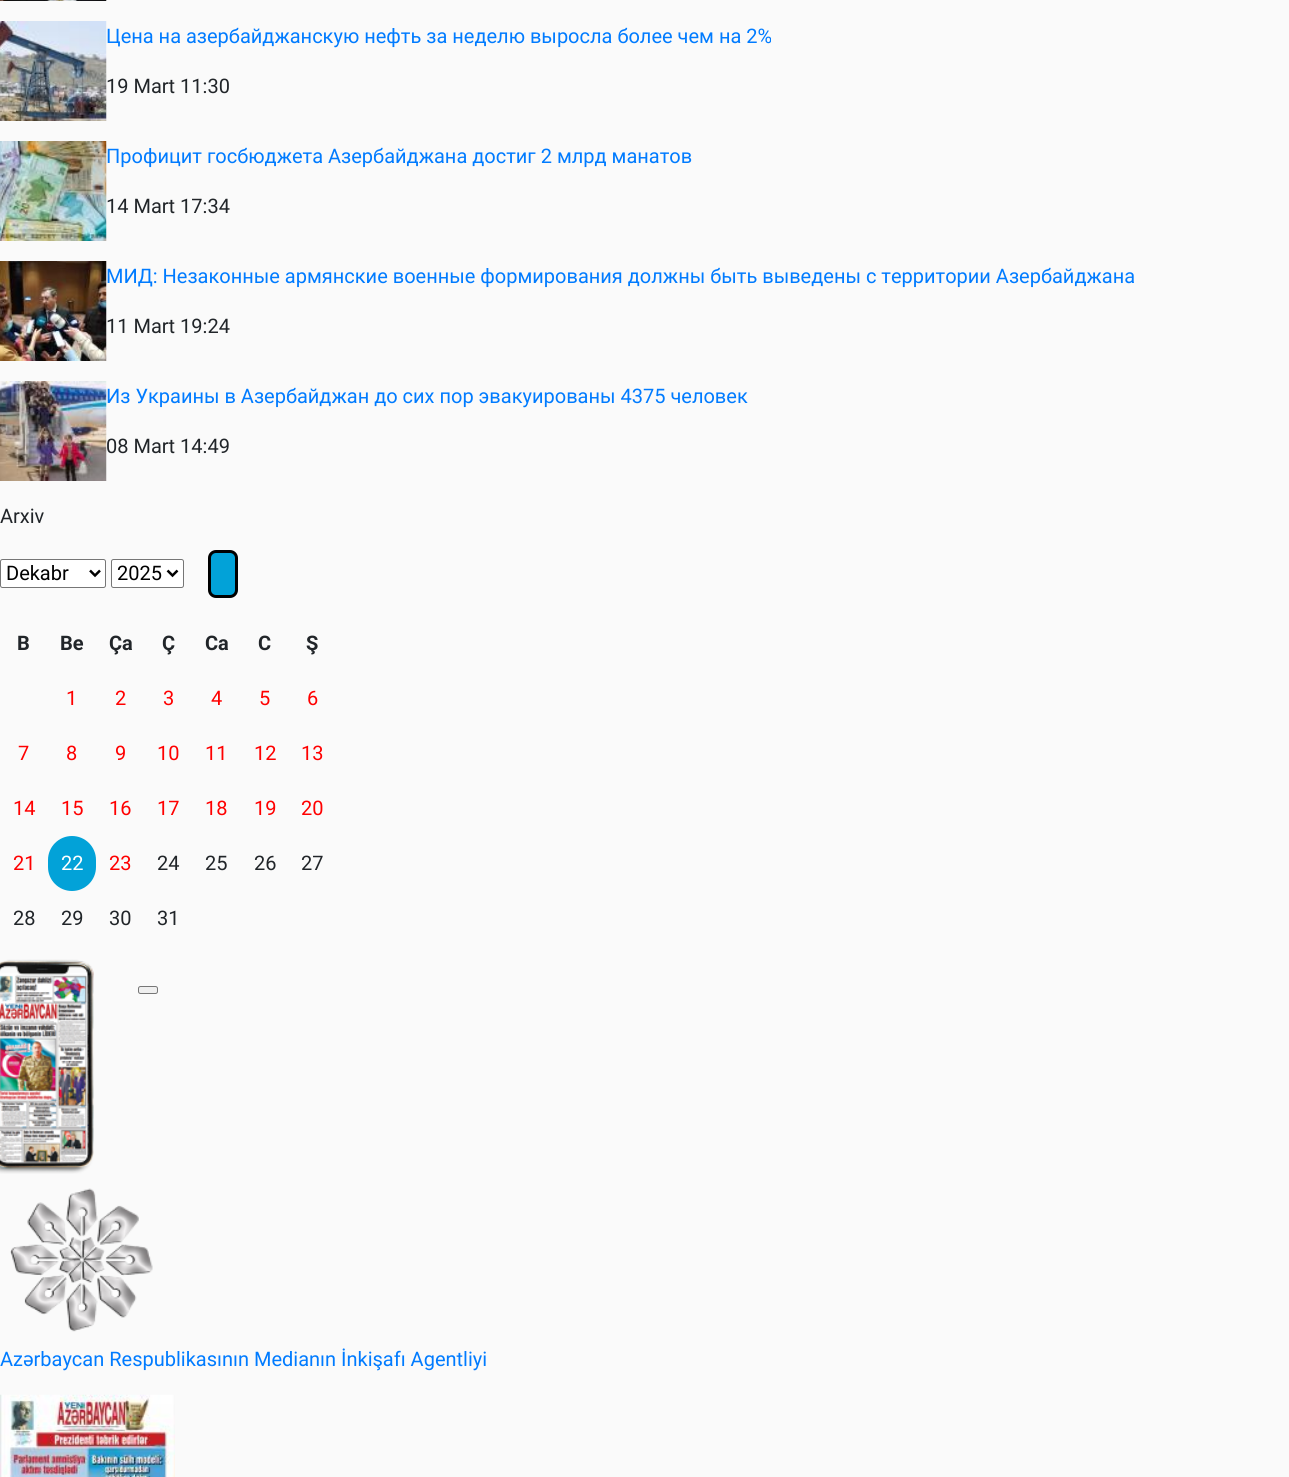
import math
import cairo


def use_color(cr, r, g, b):
  cr.set_source_rgb(r / 255, g / 255, b / 255)

def text(cr, x, y, s, family, size, color, bold=False, italic=False):
  cr.select_font_face(family, cairo.FONT_SLANT_ITALIC if italic else cairo.FONT_SLANT_NORMAL, cairo.FONT_WEIGHT_BOLD if bold else cairo.FONT_WEIGHT_NORMAL)
  cr.set_font_size(size)
  use_color(cr, *color)
  cr.move_to(x, y)
  cr.show_text(s)

def round_rect(cr, x, y, w, h, r):
  cr.new_sub_path()
  for i, (u, v) in enumerate([(x + w - r, y + h - r), (x + r, y + h - r), (x + r, y + r), (x + w - r, y + r)]):
    cr.arc(u, v, r, i * math.pi / 2, (i + 1) * math.pi / 2)
  cr.close_path()

def picture(cr, path, x, y, w, h):
  cr.save()
  cr.set_source_surface(cairo.ImageSurface.create_from_png(path), x, y)
  cr.rectangle(x, y, w, h)
  cr.fill()
  cr.restore()

def draw(cr):
  use_color(cr, 250, 250, 250)
  cr.paint()
  picture(cr, "img_01.png", 0, 0, 107, 1)
  picture(cr, "img_02.png", 0, 21, 107, 100)
  picture(cr, "img_03.png", 0, 141, 107, 100)
  picture(cr, "img_04.png", 0, 261, 107, 100)
  picture(cr, "img_05.png", 0, 381, 107, 100)
  use_color(cr, 255, 255, 255)
  round_rect(cr, 0.5, 559.5, 105, 28, 2)
  cr.fill_preserve()
  use_color(cr, 118, 118, 118)
  cr.set_line_width(1)
  cr.stroke()
  cr.new_path()
  cr.move_to(90, 570.5)
  cr.line_to(95, 575.5)
  cr.line_to(100, 570.5)
  use_color(cr, 0, 0, 0)
  cr.set_line_width(2.5)
  cr.stroke()
  use_color(cr, 255, 255, 255)
  round_rect(cr, 111.5, 559.5, 72, 28, 2)
  cr.fill_preserve()
  use_color(cr, 118, 118, 118)
  cr.set_line_width(1)
  cr.stroke()
  cr.new_path()
  cr.move_to(167.5, 570.5)
  cr.line_to(172.5, 575.5)
  cr.line_to(177.5, 570.5)
  use_color(cr, 0, 0, 0)
  cr.set_line_width(2.5)
  cr.stroke()
  use_color(cr, 2, 162, 216)
  round_rect(cr, 209.5, 551.5, 27, 45, 6.5)
  cr.fill_preserve()
  use_color(cr, 0, 0, 0)
  cr.set_line_width(3)
  cr.stroke()
  use_color(cr, 2, 162, 216)
  round_rect(cr, 48, 836, 48, 55, 24)
  cr.fill()
  picture(cr, "img_06.png", 0, 959, 94, 215)
  use_color(cr, 239, 239, 239)
  round_rect(cr, 138.5, 986.5, 19, 7, 2)
  cr.fill_preserve()
  use_color(cr, 118, 118, 118)
  cr.set_line_width(1)
  cr.stroke()
  picture(cr, "img_07.png", 10, 1188, 143, 144)
  picture(cr, "img_08.png", 0, 1394, 175, 83)
  text(cr, 106, 43, "Цена на азербайджанскую нефть за неделю выросла более чем на 2%", "Roboto", 20, (0, 123, 255))
  text(cr, 106, 93, "19 Mart 11:30", "Roboto", 20, (33, 37, 41))
  text(cr, 106, 163, "Профицит госбюджета Азербайджана достиг 2 млрд манатов", "Roboto", 20, (0, 123, 255))
  text(cr, 106, 213, "14 Mart 17:34", "Roboto", 20, (33, 37, 41))
  text(cr, 106, 283, "МИД: Незаконные армянские военные формирования должны быть выведены с территории Азербайджана", "Roboto", 20, (0, 123, 255))
  text(cr, 106, 333, "11 Mart 19:24", "Roboto", 20, (33, 37, 41))
  text(cr, 106, 403, "Из Украины в Азербайджан до сих пор эвакуированы 4375 человек", "Roboto", 20, (0, 123, 255))
  text(cr, 106, 453, "08 Mart 14:49", "Roboto", 20, (33, 37, 41))
  text(cr, 0, 523, "Arxiv", "Roboto", 20, (33, 37, 41))
  text(cr, 6, 580, "Dekabr", "Roboto", 20, (0, 0, 0))
  text(cr, 117, 580, "2025", "Roboto", 20, (0, 0, 0))
  text(cr, 17, 650, "B", "Roboto", 20, (33, 37, 41), bold=True)
  text(cr, 60, 650, "Be", "Roboto", 20, (33, 37, 41), bold=True)
  text(cr, 109, 650, "Ça", "Roboto", 20, (33, 37, 41), bold=True)
  text(cr, 162, 650, "Ç", "Roboto", 20, (33, 37, 41), bold=True)
  text(cr, 205, 650, "Ca", "Roboto", 20, (33, 37, 41), bold=True)
  text(cr, 258, 650, "C", "Roboto", 20, (33, 37, 41), bold=True)
  text(cr, 306, 650, "Ş", "Roboto", 20, (33, 37, 41), bold=True)
  text(cr, 66, 705, "1", "Roboto", 20, (255, 0, 0))
  text(cr, 115, 705, "2", "Roboto", 20, (255, 0, 0))
  text(cr, 163, 705, "3", "Roboto", 20, (255, 0, 0))
  text(cr, 211, 705, "4", "Roboto", 20, (255, 0, 0))
  text(cr, 259, 705, "5", "Roboto", 20, (255, 0, 0))
  text(cr, 307, 705, "6", "Roboto", 20, (255, 0, 0))
  text(cr, 18, 760, "7", "Roboto", 20, (255, 0, 0))
  text(cr, 66, 760, "8", "Roboto", 20, (255, 0, 0))
  text(cr, 115, 760, "9", "Roboto", 20, (255, 0, 0))
  text(cr, 157, 760, "10", "Roboto", 20, (255, 0, 0))
  text(cr, 205, 760, "11", "Roboto", 20, (255, 0, 0))
  text(cr, 254, 760, "12", "Roboto", 20, (255, 0, 0))
  text(cr, 301, 760, "13", "Roboto", 20, (255, 0, 0))
  text(cr, 13, 815, "14", "Roboto", 20, (255, 0, 0))
  text(cr, 61, 815, "15", "Roboto", 20, (255, 0, 0))
  text(cr, 109, 815, "16", "Roboto", 20, (255, 0, 0))
  text(cr, 157, 815, "17", "Roboto", 20, (255, 0, 0))
  text(cr, 205, 815, "18", "Roboto", 20, (255, 0, 0))
  text(cr, 254, 815, "19", "Roboto", 20, (255, 0, 0))
  text(cr, 301, 815, "20", "Roboto", 20, (255, 0, 0))
  text(cr, 13, 870, "21", "Roboto", 20, (255, 0, 0))
  text(cr, 61, 870, "22", "Roboto", 20, (255, 255, 255))
  text(cr, 109, 870, "23", "Roboto", 20, (255, 0, 0))
  text(cr, 157, 870, "24", "Roboto", 20, (33, 37, 41))
  text(cr, 205, 870, "25", "Roboto", 20, (33, 37, 41))
  text(cr, 254, 870, "26", "Roboto", 20, (33, 37, 41))
  text(cr, 301, 870, "27", "Roboto", 20, (33, 37, 41))
  text(cr, 13, 925, "28", "Roboto", 20, (33, 37, 41))
  text(cr, 61, 925, "29", "Roboto", 20, (33, 37, 41))
  text(cr, 109, 925, "30", "Roboto", 20, (33, 37, 41))
  text(cr, 157, 925, "31", "Roboto", 20, (33, 37, 41))
  text(cr, 0, 1366, "Azərbaycan Respublikasının Medianın İnkişafı Agentliyi", "Roboto", 20, (0, 123, 255))


surface = cairo.ImageSurface(cairo.FORMAT_RGB24, 1289, 1477)
cr = cairo.Context(surface)
options = cairo.FontOptions()
options.set_hint_metrics(cairo.HINT_METRICS_OFF)
options.set_hint_style(cairo.HINT_STYLE_NONE)
cr.set_font_options(options)
cr.set_miter_limit(4)
draw(cr)
surface.write_to_png("out.png")
